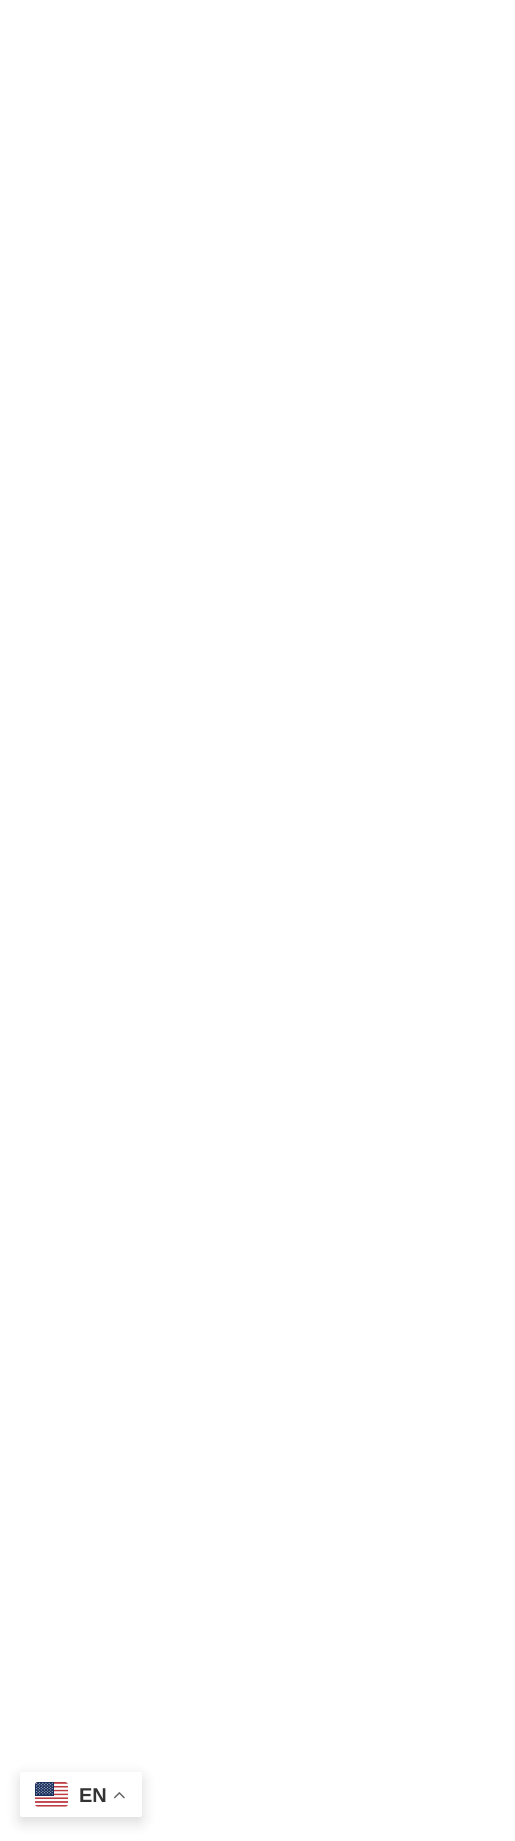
import math
import cairo


def use_color(cr, r, g, b):
  cr.set_source_rgb(r / 255, g / 255, b / 255)

def text(cr, x, y, s, family, size, color, bold=False, italic=False):
  cr.select_font_face(family, cairo.FONT_SLANT_ITALIC if italic else cairo.FONT_SLANT_NORMAL, cairo.FONT_WEIGHT_BOLD if bold else cairo.FONT_WEIGHT_NORMAL)
  cr.set_font_size(size)
  use_color(cr, *color)
  cr.move_to(x, y)
  cr.show_text(s)

def round_rect(cr, x, y, w, h, r):
  cr.new_sub_path()
  for i, (u, v) in enumerate([(x + w - r, y + h - r), (x + r, y + h - r), (x + r, y + r), (x + w - r, y + r)]):
    cr.arc(u, v, r, i * math.pi / 2, (i + 1) * math.pi / 2)
  cr.close_path()

def shadow(cr, x, y, w, h, r, blur, alpha):
  cr.push_group_with_content(cairo.CONTENT_ALPHA)
  cr.set_operator(cairo.OPERATOR_SOURCE)
  for i in range(15, -16, -2):
    e = blur * i / 6
    if min(w, h) + 2 * e > 0:
      cr.set_source_rgba(0, 0, 0, alpha * math.erfc((i - 1) / 8.5) / 2)
      round_rect(cr, x - e, y - e, w + 2 * e, h + 2 * e, max(0, min(r + e + blur * .6, min(w, h) / 2 + e)))
      cr.fill()
  cr.mask(cr.pop_group())

def picture(cr, path, x, y, w, h):
  cr.save()
  cr.set_source_surface(cairo.ImageSurface.create_from_png(path), x, y)
  cr.rectangle(x, y, w, h)
  cr.fill()
  cr.restore()

def draw(cr):
  use_color(cr, 255, 255, 255)
  cr.paint()
  use_color(cr, 0, 0, 0)
  shadow(cr, 20, 1777, 122, 45, 2, 7.5, 0.15)
  use_color(cr, 255, 255, 255)
  round_rect(cr, 20, 1772, 122, 45, 2)
  cr.fill()
  picture(cr, "img_01.png", 35, 1782, 33, 25)
  picture(cr, "img_02.png", 114, 1792, 11, 7)
  text(cr, 79, 1802, "EN", "Liberation Sans", 20, (51, 51, 51), bold=True)


surface = cairo.ImageSurface(cairo.FORMAT_RGB24, 515, 1841)
cr = cairo.Context(surface)
options = cairo.FontOptions()
options.set_hint_metrics(cairo.HINT_METRICS_OFF)
options.set_hint_style(cairo.HINT_STYLE_NONE)
cr.set_font_options(options)
cr.set_miter_limit(4)
draw(cr)
surface.write_to_png("out.png")
